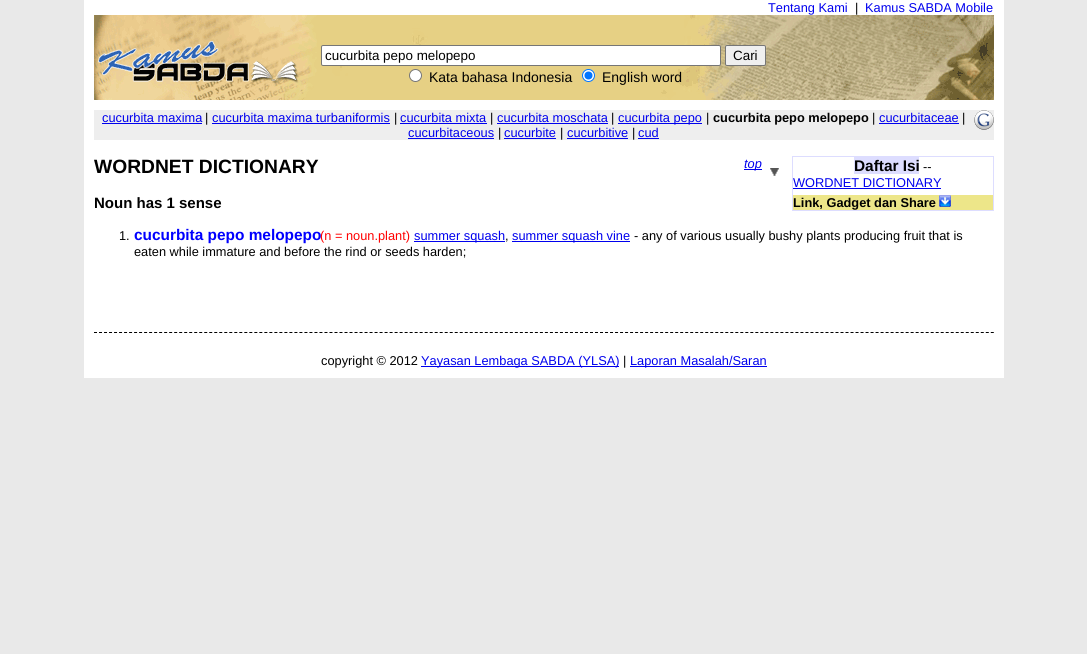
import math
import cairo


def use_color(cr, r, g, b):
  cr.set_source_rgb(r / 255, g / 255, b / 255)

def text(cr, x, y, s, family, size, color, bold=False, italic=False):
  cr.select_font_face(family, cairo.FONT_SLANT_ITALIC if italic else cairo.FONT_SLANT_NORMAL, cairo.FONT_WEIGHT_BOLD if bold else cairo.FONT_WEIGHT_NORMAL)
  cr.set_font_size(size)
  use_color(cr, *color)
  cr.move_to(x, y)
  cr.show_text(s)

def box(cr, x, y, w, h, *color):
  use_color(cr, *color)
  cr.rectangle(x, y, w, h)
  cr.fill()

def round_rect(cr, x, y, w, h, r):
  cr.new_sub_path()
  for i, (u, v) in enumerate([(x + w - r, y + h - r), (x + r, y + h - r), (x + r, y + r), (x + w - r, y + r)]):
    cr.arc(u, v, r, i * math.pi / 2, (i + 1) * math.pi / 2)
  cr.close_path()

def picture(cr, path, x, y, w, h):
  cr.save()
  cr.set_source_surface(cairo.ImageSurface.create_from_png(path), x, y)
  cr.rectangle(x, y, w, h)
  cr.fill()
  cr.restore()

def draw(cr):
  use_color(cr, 233, 233, 233)
  cr.paint()
  box(cr, 84, 0, 920, 378, 255, 255, 255)
  picture(cr, "img_01.png", 94, 15, 900, 85)
  round_rect(cr, 321.5, 45.5, 399, 20, 1.5)
  cr.fill_preserve()
  use_color(cr, 118, 118, 118)
  cr.set_line_width(1)
  cr.stroke()
  use_color(cr, 239, 239, 239)
  round_rect(cr, 725.5, 45.5, 40, 20, 1.5)
  cr.fill_preserve()
  use_color(cr, 118, 118, 118)
  cr.stroke()
  use_color(cr, 255, 255, 255)
  cr.arc(415.5, 75.5, 6, 0, 2 * math.pi)
  cr.fill_preserve()
  use_color(cr, 118, 118, 118)
  cr.stroke()
  use_color(cr, 255, 255, 255)
  cr.arc(588.5, 75.5, 6, 0, 2 * math.pi)
  cr.fill_preserve()
  use_color(cr, 0, 117, 255)
  cr.stroke()
  cr.arc(588.5, 75.5, 4, 0, 2 * math.pi)
  cr.fill()
  box(cr, 94, 110, 900, 30, 238, 238, 238)
  box(cr, 102, 123, 100, 1, 0, 0, 238)
  box(cr, 212, 123, 178, 1, 0, 0, 238)
  box(cr, 400, 123, 87, 1, 0, 0, 238)
  box(cr, 497, 123, 111, 1, 0, 0, 238)
  box(cr, 618, 123, 84, 1, 0, 0, 238)
  box(cr, 879, 123, 80, 1, 0, 0, 238)
  box(cr, 408, 138, 86, 1, 0, 0, 238)
  box(cr, 504, 138, 52, 1, 0, 0, 238)
  box(cr, 567, 138, 61, 1, 0, 0, 238)
  box(cr, 638, 138, 21, 1, 0, 0, 238)
  picture(cr, "img_02.png", 974, 110, 20, 20)
  cr.new_path()
  cr.move_to(94, 332.5)
  cr.line_to(994, 332.5)
  use_color(cr, 0, 0, 0)
  cr.set_dash([3, 2.01])
  cr.stroke()
  box(cr, 744, 169, 18, 1, 0, 0, 238)
  box(cr, 414, 241, 91, 1, 0, 0, 238)
  box(cr, 512, 241, 118, 1, 0, 0, 238)
  picture(cr, "img_03.png", 770, 168, 9, 8)
  cr.rectangle(792.5, 156.5, 201, 54)
  use_color(cr, 221, 221, 255)
  cr.set_dash([])
  cr.stroke()
  box(cr, 854, 157, 65, 17, 221, 221, 255)
  box(cr, 793, 188, 148, 1, 0, 0, 238)
  box(cr, 793, 195, 200, 15, 237, 230, 137)
  picture(cr, "img_04.png", 939, 195, 12, 12)
  box(cr, 421, 366, 198, 1, 0, 0, 238)
  box(cr, 630, 366, 137, 1, 0, 0, 238)
  text(cr, 768, 12, "Tentang Kami", "Liberation Sans", 12.8, (0, 0, 238))
  text(cr, 855, 12, "|", "Liberation Sans", 12.8, (0, 0, 0))
  text(cr, 865, 12, "Kamus SABDA Mobile", "Liberation Sans", 12.8, (0, 0, 238))
  text(cr, 325, 60, "cucurbita pepo melopepo", "Liberation Sans", 13.4, (0, 0, 0))
  text(cr, 733, 60, "Cari", "Liberation Sans", 13.4, (0, 0, 0))
  text(cr, 429, 82, "Kata bahasa Indonesia", "Liberation Sans", 14, (0, 0, 0))
  text(cr, 602, 82, "English word", "Liberation Sans", 14, (0, 0, 0))
  text(cr, 102, 122, "cucurbita maxima", "Liberation Sans", 12.8, (0, 0, 238))
  text(cr, 205, 122, "|", "Liberation Sans", 12.8, (0, 0, 0))
  text(cr, 212, 122, "cucurbita maxima turbaniformis", "Liberation Sans", 12.8, (0, 0, 238))
  text(cr, 394, 122, "|", "Liberation Sans", 12.8, (0, 0, 0))
  text(cr, 400, 122, "cucurbita mixta", "Liberation Sans", 12.8, (0, 0, 238))
  text(cr, 490, 122, "|", "Liberation Sans", 12.8, (0, 0, 0))
  text(cr, 497, 122, "cucurbita moschata", "Liberation Sans", 12.8, (0, 0, 238))
  text(cr, 611, 122, "|", "Liberation Sans", 12.8, (0, 0, 0))
  text(cr, 618, 122, "cucurbita pepo", "Liberation Sans", 12.8, (0, 0, 238))
  text(cr, 706, 122, "|", "Liberation Sans", 12.8, (0, 0, 0))
  text(cr, 713, 122, "cucurbita pepo melopepo", "Liberation Sans", 12.8, (0, 0, 0), bold=True)
  text(cr, 872, 122, "|", "Liberation Sans", 12.8, (0, 0, 0))
  text(cr, 879, 122, "cucurbitaceae", "Liberation Sans", 12.8, (0, 0, 238))
  text(cr, 962, 122, "|", "Liberation Sans", 12.8, (0, 0, 0))
  text(cr, 408, 137, "cucurbitaceous", "Liberation Sans", 12.8, (0, 0, 238))
  text(cr, 498, 137, "|", "Liberation Sans", 12.8, (0, 0, 0))
  text(cr, 504, 137, "cucurbite", "Liberation Sans", 12.8, (0, 0, 238))
  text(cr, 560, 137, "|", "Liberation Sans", 12.8, (0, 0, 0))
  text(cr, 567, 137, "cucurbitive", "Liberation Sans", 12.8, (0, 0, 238))
  text(cr, 632, 137, "|", "Liberation Sans", 12.8, (0, 0, 0))
  text(cr, 638, 137, "cud", "Liberation Sans", 12.8, (0, 0, 238))
  text(cr, 94, 173, "WORDNET DICTIONARY", "Liberation Sans", 19.25, (0, 0, 0), bold=True)
  text(cr, 744, 168, "top", "Liberation Sans", 12.8, (0, 0, 238), italic=True)
  text(cr, 94, 208, "Noun has 1 sense", "Liberation Sans", 15, (0, 0, 0), bold=True)
  text(cr, 119, 240, "1.", "Liberation Sans", 12.8, (0, 0, 0))
  text(cr, 134, 240, "cucurbita pepo melopepo", "Liberation Sans", 15.4, (0, 0, 255), bold=True)
  text(cr, 320, 240, "(n = noun.plant)", "Liberation Sans", 12.8, (255, 0, 0))
  text(cr, 414, 240, "summer squash", "Liberation Sans", 12.8, (0, 0, 238))
  text(cr, 505, 240, ",", "Liberation Sans", 12.8, (0, 0, 0))
  text(cr, 512, 240, "summer squash vine", "Liberation Sans", 12.8, (0, 0, 238))
  text(cr, 634, 240, "- any of various usually bushy plants producing fruit that is", "Liberation Sans", 12.8, (0, 0, 0))
  text(cr, 134, 256, "eaten while immature and before the rind or seeds harden;", "Liberation Sans", 12.8, (0, 0, 0))
  text(cr, 854, 171, "Daftar Isi", "Liberation Sans", 15.4, (0, 0, 0), bold=True)
  text(cr, 923, 171, "--", "Liberation Sans", 12.8, (0, 0, 0))
  text(cr, 793, 187, "WORDNET DICTIONARY", "Liberation Sans", 12.8, (0, 0, 238))
  text(cr, 793, 207, "Link, Gadget dan Share", "Liberation Sans", 12.8, (0, 0, 0), bold=True)
  text(cr, 321, 365, "copyright © 2012", "Liberation Sans", 12.8, (0, 0, 0))
  text(cr, 421, 365, "Yayasan Lembaga SABDA (YLSA)", "Liberation Sans", 12.8, (0, 0, 238))
  text(cr, 623, 365, "|", "Liberation Sans", 12.8, (0, 0, 0))
  text(cr, 630, 365, "Laporan Masalah/Saran", "Liberation Sans", 12.8, (0, 0, 238))


surface = cairo.ImageSurface(cairo.FORMAT_RGB24, 1087, 654)
cr = cairo.Context(surface)
options = cairo.FontOptions()
options.set_hint_metrics(cairo.HINT_METRICS_OFF)
options.set_hint_style(cairo.HINT_STYLE_NONE)
cr.set_font_options(options)
cr.set_miter_limit(4)
draw(cr)
surface.write_to_png("out.png")
